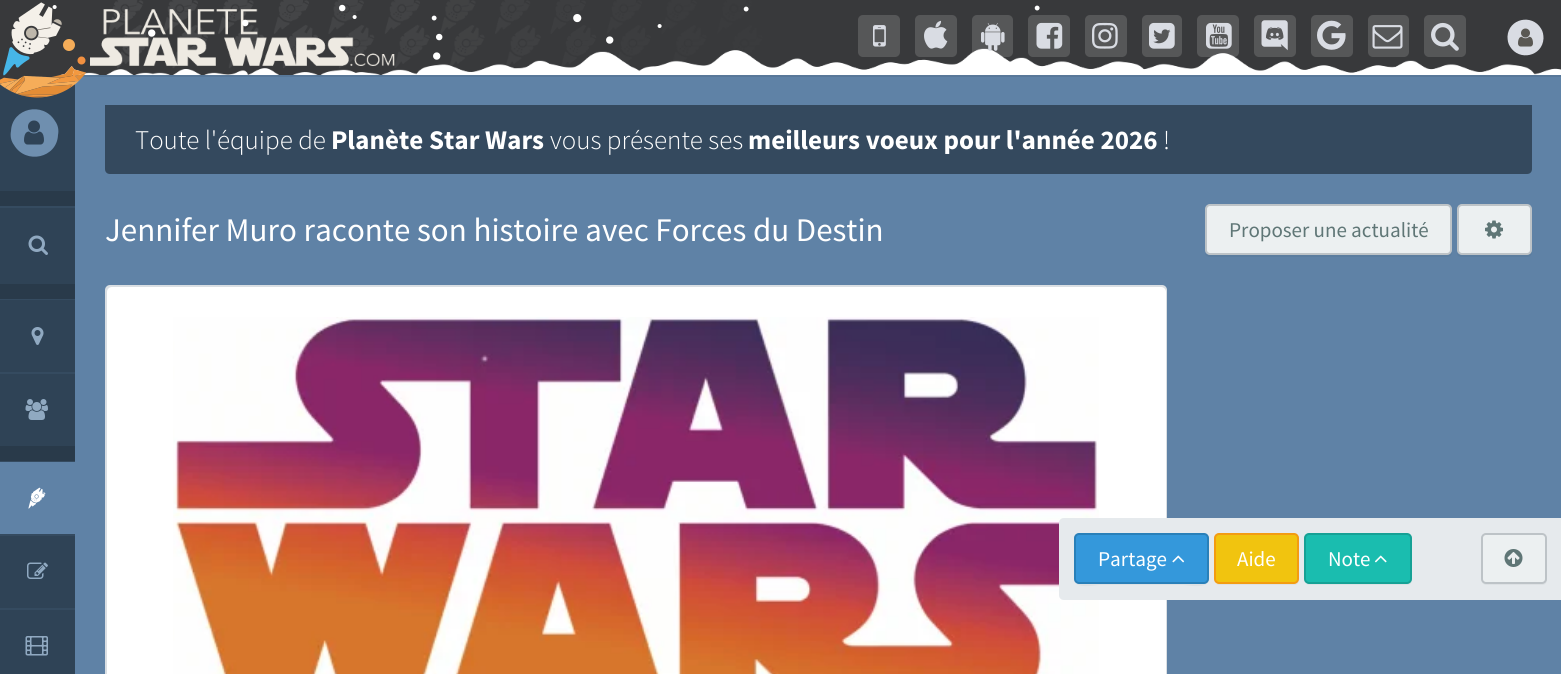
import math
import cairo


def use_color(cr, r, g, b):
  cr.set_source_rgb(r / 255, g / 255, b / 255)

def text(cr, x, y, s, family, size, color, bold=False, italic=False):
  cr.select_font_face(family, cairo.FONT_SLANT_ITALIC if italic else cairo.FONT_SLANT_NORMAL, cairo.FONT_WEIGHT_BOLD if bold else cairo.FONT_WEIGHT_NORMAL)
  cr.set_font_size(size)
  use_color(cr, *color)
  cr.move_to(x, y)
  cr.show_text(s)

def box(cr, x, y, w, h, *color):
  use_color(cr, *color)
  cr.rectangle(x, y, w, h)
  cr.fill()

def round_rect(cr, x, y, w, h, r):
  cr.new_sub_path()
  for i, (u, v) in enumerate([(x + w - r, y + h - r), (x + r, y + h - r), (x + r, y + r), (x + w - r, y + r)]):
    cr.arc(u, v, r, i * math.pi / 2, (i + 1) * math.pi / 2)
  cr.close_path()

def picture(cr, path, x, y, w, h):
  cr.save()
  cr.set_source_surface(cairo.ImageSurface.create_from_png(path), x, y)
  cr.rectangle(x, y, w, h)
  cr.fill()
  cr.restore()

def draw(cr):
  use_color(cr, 95, 130, 166)
  cr.paint()
  box(cr, 0, 75, 75, 209, 47, 67, 86)
  cr.set_source_rgba(0, 0, 0, 0.08)
  cr.new_path()
  cr.move_to(0, 75)
  cr.line_to(0, 77)
  cr.line_to(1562, 77)
  cr.line_to(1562, 2)
  cr.line_to(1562, 75)
  cr.close_path()
  cr.fill()
  box(cr, 0, 0, 1561, 75, 56, 57, 59)
  picture(cr, "img_01.png", 60, 0, 1501, 75)
  picture(cr, "img_02.png", 0, 2, 86, 96)
  picture(cr, "img_03.png", 90, 9, 305, 57)
  use_color(cr, 86, 87, 88)
  round_rect(cr, 858, 15, 42, 42, 5)
  cr.fill()
  picture(cr, "img_04.png", 873, 25, 13, 22)
  round_rect(cr, 915, 15, 42, 42, 5)
  cr.fill()
  picture(cr, "img_05.png", 924, 20, 24, 29)
  cr.set_source_rgba(1, 1, 1, 0.15)
  round_rect(cr, 972, 15, 41, 42, 5)
  cr.fill()
  picture(cr, "img_06.png", 981, 23, 24, 28)
  use_color(cr, 86, 87, 88)
  round_rect(cr, 1028, 15, 42, 42, 5)
  cr.fill()
  picture(cr, "img_07.png", 1036, 22, 27, 27)
  round_rect(cr, 1085, 15, 42, 42, 5)
  cr.fill()
  picture(cr, "img_08.png", 1092, 22, 26, 27)
  round_rect(cr, 1142, 15, 40, 42, 5)
  cr.fill()
  picture(cr, "img_09.png", 1149, 22, 26, 27)
  cr.set_source_rgba(1, 1, 1, 0.15)
  round_rect(cr, 1197, 15, 42, 42, 5)
  cr.fill()
  picture(cr, "img_10.png", 1206, 22, 26, 27)
  use_color(cr, 86, 87, 88)
  round_rect(cr, 1254, 15, 42, 42, 5)
  cr.fill()
  picture(cr, "img_11.png", 1261, 20, 27, 31)
  round_rect(cr, 1311, 15, 42, 42, 5)
  cr.fill()
  picture(cr, "img_12.png", 1317, 20, 29, 30)
  round_rect(cr, 1368, 15, 41, 42, 5)
  cr.fill()
  picture(cr, "img_13.png", 1372, 25, 31, 24)
  round_rect(cr, 1424, 15, 42, 42, 5)
  cr.fill()
  picture(cr, "img_14.png", 1431, 22, 28, 29)
  use_color(cr, 217, 220, 227)
  cr.new_path()
  cr.move_to(1541, 28.5)
  cr.curve_to(1543, 31.5, 1543.5, 35, 1543.5, 38.5)
  cr.curve_to(1542.5, 56.5, 1519, 61.5, 1510, 46.5)
  cr.curve_to(1508, 43.5, 1507.5, 40, 1507.5, 36.5)
  cr.curve_to(1508.5, 18.5, 1532, 13.5, 1541, 28.5)
  cr.close_path()
  cr.fill()
  picture(cr, "img_15.png", 1518, 28, 15, 19)
  use_color(cr, 111, 143, 175)
  cr.new_path()
  cr.move_to(55, 121)
  cr.curve_to(58, 125, 59, 130, 58, 135)
  cr.curve_to(57, 158, 26, 165, 14, 145)
  cr.curve_to(11, 141, 10, 136, 11, 131)
  cr.curve_to(12, 108, 43, 101, 55, 121)
  cr.close_path()
  cr.fill()
  picture(cr, "img_16.png", 24, 120, 20, 25)
  box(cr, 0, 191, 75, 15, 41, 58, 74)
  box(cr, 0, 206, 75, 2, 53, 75, 96)
  picture(cr, "img_17.png", 28, 235, 20, 20)
  box(cr, 0, 284, 75, 15, 41, 58, 74)
  box(cr, 0, 299, 75, 1, 53, 75, 96)
  box(cr, 0, 300, 75, 146, 47, 67, 86)
  picture(cr, "img_18.png", 31, 327, 13, 18)
  box(cr, 0, 372, 75, 2, 53, 75, 96)
  picture(cr, "img_19.png", 25, 399, 23, 21)
  box(cr, 0, 446, 75, 15, 41, 58, 74)
  box(cr, 0, 461, 75, 1, 53, 75, 96)
  box(cr, 0, 536, 75, 138, 47, 67, 86)
  picture(cr, "img_20.png", 28, 487, 18, 22)
  box(cr, 0, 534, 75, 2, 53, 75, 96)
  picture(cr, "img_21.png", 27, 562, 21, 17)
  box(cr, 0, 608, 75, 2, 53, 75, 96)
  picture(cr, "img_22.png", 25, 636, 23, 20)
  use_color(cr, 52, 73, 94)
  cr.new_path()
  cr.move_to(105, 105)
  cr.line_to(1532, 105)
  cr.line_to(1532, 169)
  cr.curve_to(1532, 172, 1530, 174, 1527, 174)
  cr.line_to(110, 174)
  cr.curve_to(107, 174, 105, 172, 105, 169)
  cr.close_path()
  cr.fill()
  use_color(cr, 91, 125, 159)
  cr.new_path()
  cr.move_to(1205, 253)
  cr.curve_to(1205, 255, 1207, 257, 1210, 257)
  cr.line_to(1447, 257)
  cr.curve_to(1450, 257, 1452, 255, 1452, 252)
  cr.line_to(1452, 250)
  cr.curve_to(1452, 253, 1450, 255, 1448, 255)
  cr.line_to(1209, 255)
  cr.curve_to(1207, 255, 1206, 254, 1205, 253)
  cr.close_path()
  cr.fill()
  use_color(cr, 236, 240, 241)
  round_rect(cr, 1206, 205, 245, 49, 4)
  cr.fill_preserve()
  use_color(cr, 189, 195, 199)
  cr.stroke()
  use_color(cr, 91, 125, 159)
  cr.new_path()
  cr.move_to(1457, 253)
  cr.curve_to(1457, 255, 1459, 257, 1462, 257)
  cr.line_to(1527, 257)
  cr.curve_to(1530, 257, 1532, 255, 1532, 252)
  cr.line_to(1532, 211)
  cr.line_to(1532, 209)
  cr.line_to(1532, 250)
  cr.curve_to(1532, 253, 1529, 255, 1527, 255)
  cr.line_to(1461, 255)
  cr.curve_to(1459, 255, 1458, 254, 1457, 253)
  cr.close_path()
  cr.fill()
  use_color(cr, 236, 240, 241)
  round_rect(cr, 1458, 205, 73, 49, 4)
  cr.fill_preserve()
  use_color(cr, 189, 195, 199)
  cr.stroke()
  picture(cr, "img_23.png", 1485, 220, 18, 19)
  use_color(cr, 218, 223, 227)
  round_rect(cr, 105, 285, 1062, 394, 5)
  cr.fill()
  use_color(cr, 255, 255, 255)
  round_rect(cr, 107, 287, 1059, 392, 5)
  cr.fill()
  picture(cr, "img_24.png", 173, 317, 926, 357)
  use_color(cr, 230, 234, 237)
  cr.new_path()
  cr.move_to(1064, 518)
  cr.line_to(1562, 518)
  cr.line_to(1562, 600)
  cr.line_to(1064, 600)
  cr.curve_to(1061, 600, 1059, 598, 1059, 595)
  cr.line_to(1059, 523)
  cr.curve_to(1059, 520, 1061, 518, 1064, 518)
  cr.close_path()
  cr.fill()
  use_color(cr, 221, 225, 228)
  cr.new_path()
  cr.move_to(1074, 579)
  cr.curve_to(1074, 590, 1096, 585, 1100, 585)
  cr.line_to(1183, 585)
  cr.curve_to(1187, 585, 1209, 590, 1209, 579)
  cr.curve_to(1209, 581, 1207, 584, 1204, 584)
  cr.line_to(1078, 584)
  cr.curve_to(1076, 584, 1074, 581, 1074, 579)
  cr.close_path()
  cr.fill()
  use_color(cr, 52, 152, 219)
  round_rect(cr, 1075, 534, 133, 49, 4)
  cr.fill_preserve()
  use_color(cr, 41, 128, 185)
  cr.stroke()
  picture(cr, "img_25.png", 1172, 555, 13, 8)
  use_color(cr, 221, 225, 228)
  cr.new_path()
  cr.move_to(1214, 581)
  cr.curve_to(1215, 583, 1217, 585, 1219, 585)
  cr.line_to(1294, 585)
  cr.curve_to(1297, 585, 1299, 583, 1299, 580)
  cr.line_to(1299, 579)
  cr.curve_to(1299, 581, 1297, 584, 1294, 584)
  cr.line_to(1218, 584)
  cr.curve_to(1216, 584, 1215, 583, 1214, 581)
  cr.close_path()
  cr.fill()
  use_color(cr, 241, 196, 15)
  round_rect(cr, 1215, 534, 83, 49, 4)
  cr.fill_preserve()
  use_color(cr, 243, 156, 18)
  cr.stroke()
  use_color(cr, 221, 225, 228)
  cr.new_path()
  cr.move_to(1304, 581)
  cr.curve_to(1305, 583, 1307, 585, 1309, 585)
  cr.line_to(1407, 585)
  cr.curve_to(1410, 585, 1412, 583, 1412, 580)
  cr.line_to(1412, 539)
  cr.line_to(1411, 537)
  cr.line_to(1412, 579)
  cr.curve_to(1412, 581, 1409, 584, 1407, 584)
  cr.line_to(1308, 584)
  cr.curve_to(1306, 584, 1305, 583, 1304, 581)
  cr.close_path()
  cr.fill()
  use_color(cr, 26, 189, 175)
  round_rect(cr, 1305, 534, 106, 49, 4)
  cr.fill_preserve()
  use_color(cr, 22, 161, 149)
  cr.stroke()
  picture(cr, "img_26.png", 1374, 555, 13, 8)
  use_color(cr, 221, 225, 228)
  cr.new_path()
  cr.move_to(1481, 581)
  cr.curve_to(1482, 583, 1484, 585, 1486, 585)
  cr.line_to(1542, 585)
  cr.curve_to(1545, 585, 1547, 583, 1547, 580)
  cr.line_to(1547, 539)
  cr.line_to(1546, 537)
  cr.line_to(1546, 572)
  cr.curve_to(1546, 585, 1546, 584, 1532, 584)
  cr.line_to(1494, 584)
  cr.curve_to(1492, 584, 1484, 585, 1481, 581)
  cr.close_path()
  cr.fill()
  use_color(cr, 236, 240, 241)
  round_rect(cr, 1482, 534, 64, 49, 4)
  cr.fill_preserve()
  use_color(cr, 189, 195, 199)
  cr.stroke()
  picture(cr, "img_27.png", 1504, 549, 19, 18)
  text(cr, 52, 12, "•", "Liberation Sans", 15, (255, 255, 255))
  text(cr, 338, 16, "•", "Liberation Sans", 24, (255, 255, 255))
  text(cr, 743, 15, "•", "Liberation Sans", 18, (255, 255, 255))
  text(cr, 1034, 14, "•", "Liberation Sans", 18, (255, 255, 255))
  text(cr, 352, 22, "•", "Liberation Sans", 15, (255, 255, 255))
  text(cr, 431, 24, "•", "Liberation Sans", 18, (255, 255, 255))
  text(cr, 572, 28, "•", "Liberation Sans", 30, (255, 255, 255))
  text(cr, 241, 31, "•", "Liberation Sans", 24, (255, 255, 255))
  text(cr, 657, 31, "•", "Liberation Sans", 15, (255, 255, 255))
  text(cr, 147, 42, "•", "Liberation Sans", 27, (255, 255, 255))
  text(cr, 435, 45, "•", "Liberation Sans", 24, (255, 255, 255))
  text(cr, 605, 49, "•", "Liberation Sans", 27, (255, 255, 255))
  text(cr, 432, 65, "•", "Liberation Sans", 27, (255, 255, 255))
  text(cr, 135, 149, "Toute l'équipe de", "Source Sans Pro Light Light", 27, (255, 255, 255))
  text(cr, 331, 149, "Planète Star Wars", "Source Sans Pro", 27, (255, 255, 255), bold=True)
  text(cr, 550, 149, "vous présente ses", "Source Sans Pro Light Light", 27, (255, 255, 255))
  text(cr, 748, 149, "meilleurs voeux pour l'année 2026", "Source Sans Pro", 27, (255, 255, 255), bold=True)
  text(cr, 1163, 149, "!", "Source Sans Pro Light Light", 27, (255, 255, 255))
  text(cr, 105, 241, "Jennifer Muro raconte son histoire avec Forces du Destin", "Source Sans Pro", 33, (255, 255, 255))
  text(cr, 1229, 237, "Proposer une actualité", "Source Sans Pro", 21, (95, 118, 118))
  text(cr, 1098, 566, "Partage", "Source Sans Pro", 21, (255, 255, 255))
  text(cr, 1237, 566, "Aide", "Source Sans Pro", 21, (255, 255, 255))
  text(cr, 1328, 566, "Note", "Source Sans Pro", 21, (255, 255, 255))


surface = cairo.ImageSurface(cairo.FORMAT_RGB24, 1561, 674)
cr = cairo.Context(surface)
options = cairo.FontOptions()
options.set_hint_metrics(cairo.HINT_METRICS_OFF)
options.set_hint_style(cairo.HINT_STYLE_NONE)
cr.set_font_options(options)
cr.set_miter_limit(4)
draw(cr)
surface.write_to_png("out.png")
